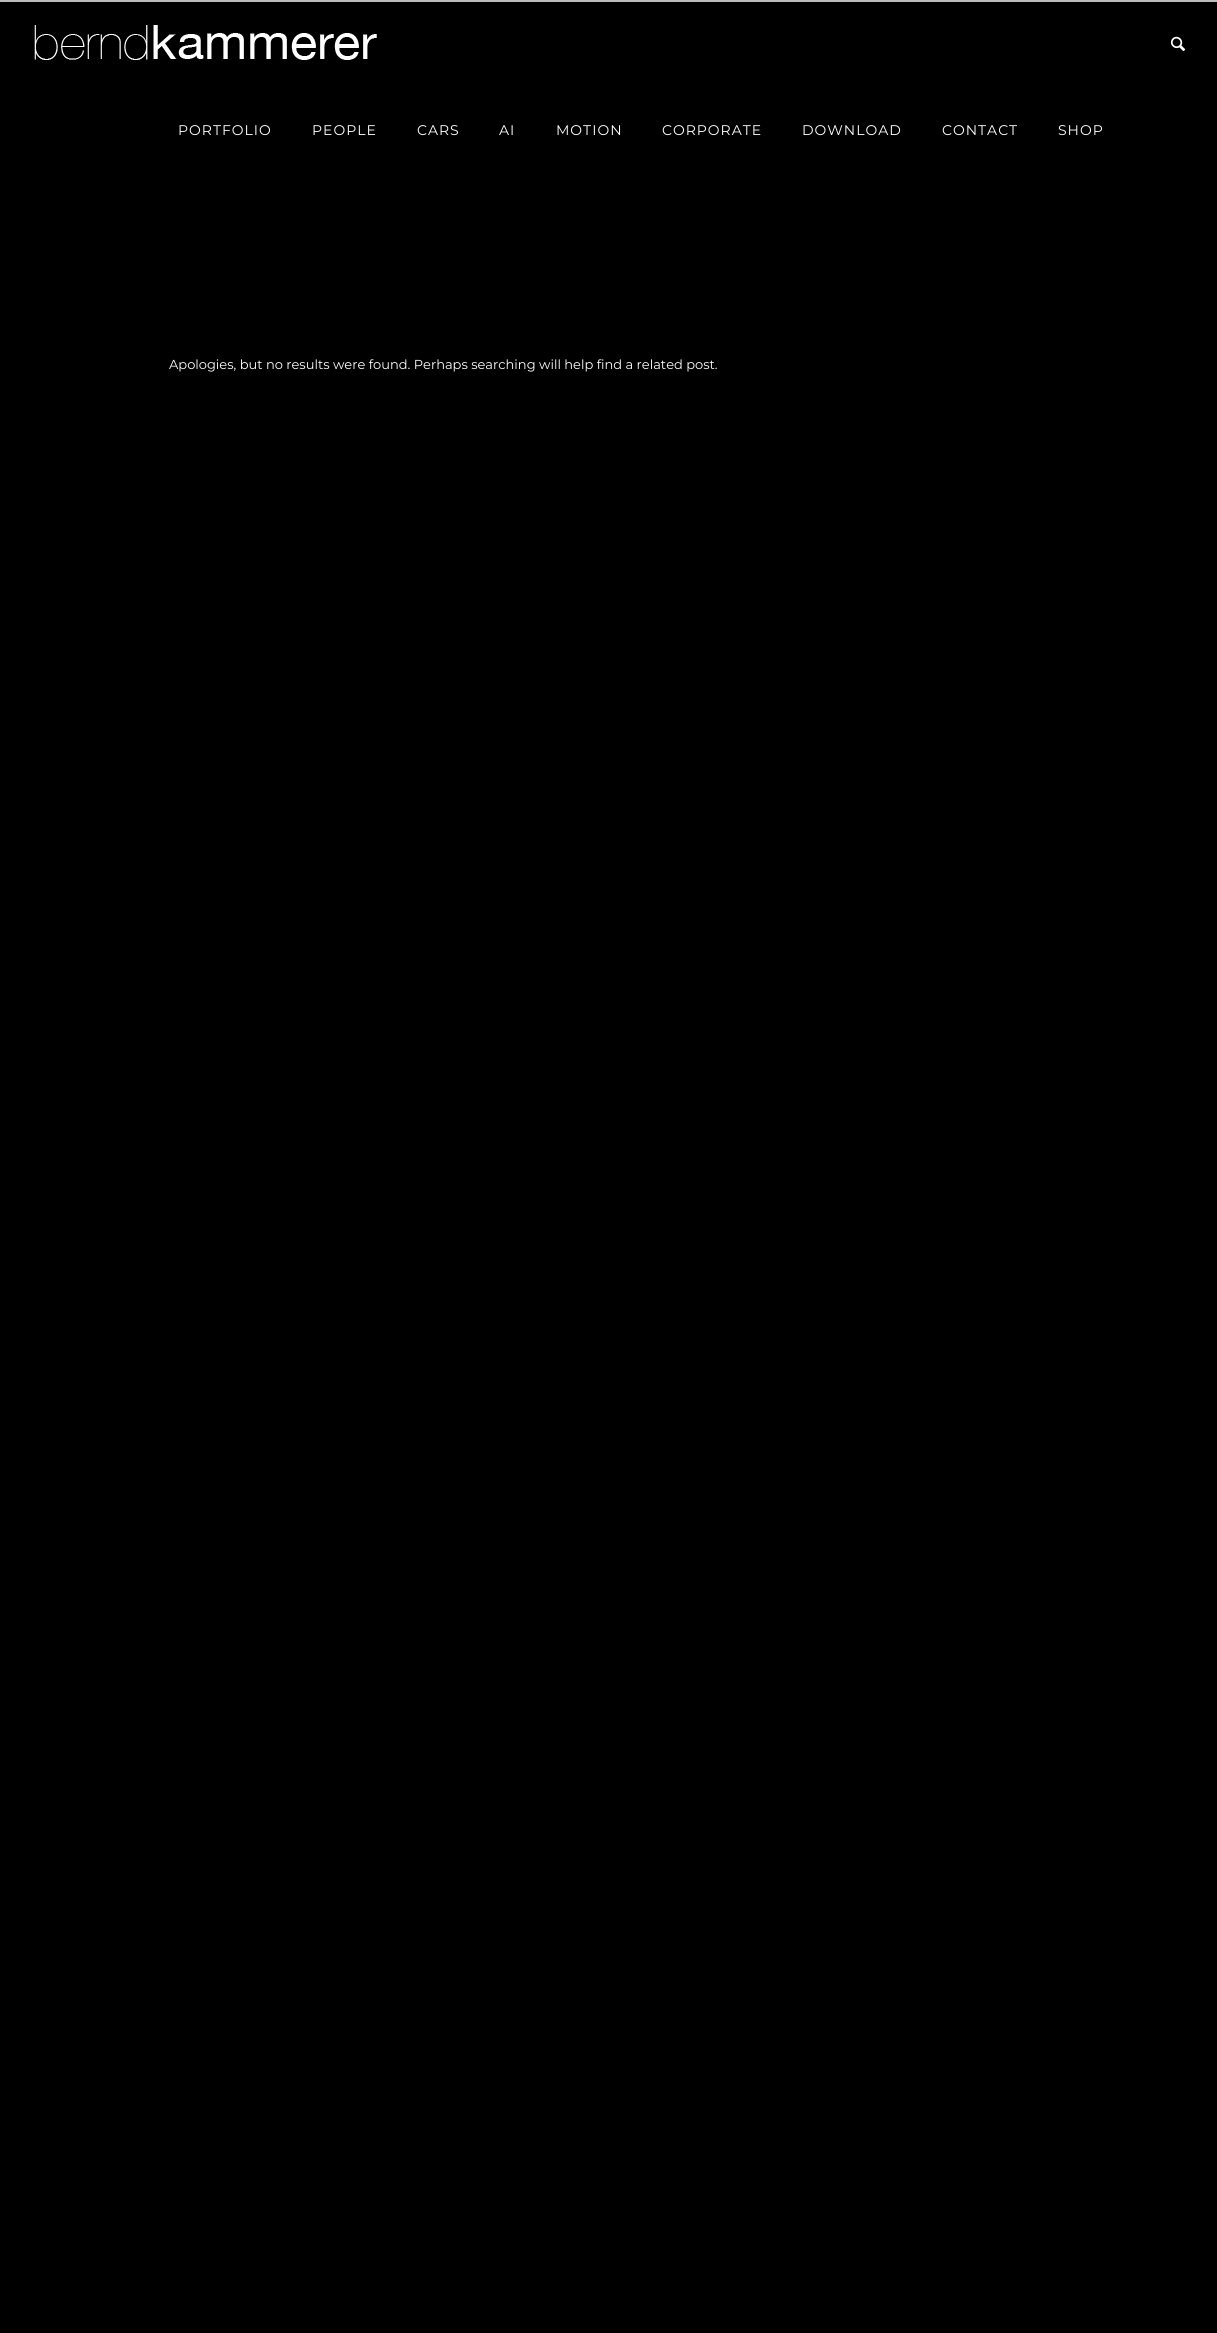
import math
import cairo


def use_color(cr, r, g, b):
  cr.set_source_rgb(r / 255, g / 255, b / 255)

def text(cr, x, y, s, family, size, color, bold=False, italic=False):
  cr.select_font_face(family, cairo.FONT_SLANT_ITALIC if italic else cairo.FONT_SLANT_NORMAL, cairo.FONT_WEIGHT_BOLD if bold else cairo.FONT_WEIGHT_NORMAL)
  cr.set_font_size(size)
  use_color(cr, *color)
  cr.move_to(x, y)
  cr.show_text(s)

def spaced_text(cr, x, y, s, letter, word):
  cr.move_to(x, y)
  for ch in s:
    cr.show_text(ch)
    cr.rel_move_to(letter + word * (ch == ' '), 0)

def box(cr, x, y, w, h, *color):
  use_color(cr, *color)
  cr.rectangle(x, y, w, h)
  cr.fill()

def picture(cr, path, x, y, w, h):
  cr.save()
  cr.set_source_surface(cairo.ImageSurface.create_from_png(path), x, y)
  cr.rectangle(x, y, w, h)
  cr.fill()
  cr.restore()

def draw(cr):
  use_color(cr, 0, 0, 0)
  cr.paint()
  picture(cr, "img_01.png", 34, 25, 343, 35)
  picture(cr, "img_02.png", 1170, 36, 16, 15)
  box(cr, 0, 0, 1217, 2, 187, 187, 187)
  cr.select_font_face("Montserrat")
  cr.set_font_size(14)
  use_color(cr, 255, 255, 255)
  spaced_text(cr, 178, 135, "PORTFOLIO", 1, 0)
  spaced_text(cr, 312, 135, "PEOPLE", 1, 0)
  spaced_text(cr, 417, 135, "CARS", 1, 0)
  spaced_text(cr, 499, 135, "AI", 1, 0)
  spaced_text(cr, 556, 135, "MOTION", 1, 0)
  spaced_text(cr, 662, 135, "CORPORATE", 1, 0)
  spaced_text(cr, 802, 135, "DOWNLOAD", 1, 0)
  spaced_text(cr, 942, 135, "CONTACT", 1, 0)
  spaced_text(cr, 1058, 135, "SHOP", 1, 0)
  text(cr, 169, 369, "Apologies, but no results were found. Perhaps searching will help find a related post.", "Montserrat", 13, (255, 255, 255))


surface = cairo.ImageSurface(cairo.FORMAT_RGB24, 1217, 2333)
cr = cairo.Context(surface)
options = cairo.FontOptions()
options.set_hint_metrics(cairo.HINT_METRICS_OFF)
options.set_hint_style(cairo.HINT_STYLE_NONE)
cr.set_font_options(options)
cr.set_miter_limit(4)
draw(cr)
surface.write_to_png("out.png")
